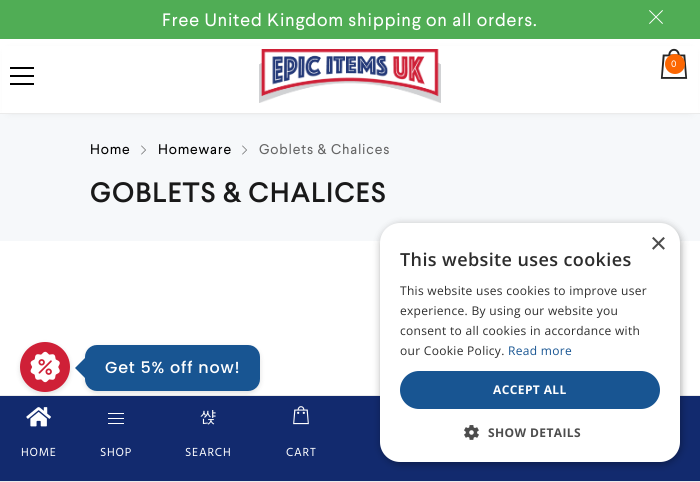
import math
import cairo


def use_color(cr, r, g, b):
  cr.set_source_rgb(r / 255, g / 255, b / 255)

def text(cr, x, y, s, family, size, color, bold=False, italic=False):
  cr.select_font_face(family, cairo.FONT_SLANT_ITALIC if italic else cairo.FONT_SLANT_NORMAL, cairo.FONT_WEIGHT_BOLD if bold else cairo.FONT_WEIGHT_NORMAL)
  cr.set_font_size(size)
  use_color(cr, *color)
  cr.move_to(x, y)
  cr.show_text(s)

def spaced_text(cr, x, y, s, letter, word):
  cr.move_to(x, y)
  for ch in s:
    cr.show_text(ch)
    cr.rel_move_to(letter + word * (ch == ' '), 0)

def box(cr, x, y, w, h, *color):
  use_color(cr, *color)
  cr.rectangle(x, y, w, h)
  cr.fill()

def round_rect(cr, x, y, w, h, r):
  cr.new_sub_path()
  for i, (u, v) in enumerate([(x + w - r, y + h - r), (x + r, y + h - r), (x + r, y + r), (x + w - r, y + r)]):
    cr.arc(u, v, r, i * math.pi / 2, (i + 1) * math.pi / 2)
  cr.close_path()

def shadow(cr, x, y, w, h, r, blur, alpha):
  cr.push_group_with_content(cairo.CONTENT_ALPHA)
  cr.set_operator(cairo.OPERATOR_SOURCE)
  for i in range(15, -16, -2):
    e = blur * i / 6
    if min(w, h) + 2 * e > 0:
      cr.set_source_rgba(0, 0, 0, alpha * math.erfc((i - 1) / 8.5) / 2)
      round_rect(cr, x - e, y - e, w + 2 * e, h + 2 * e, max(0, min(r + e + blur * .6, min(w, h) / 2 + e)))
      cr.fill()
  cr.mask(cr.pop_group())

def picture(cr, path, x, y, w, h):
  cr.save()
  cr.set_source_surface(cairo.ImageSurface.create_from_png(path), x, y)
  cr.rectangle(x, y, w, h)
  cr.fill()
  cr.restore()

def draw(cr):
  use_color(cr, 255, 255, 255)
  cr.paint()
  box(cr, 0, 0, 700, 39, 80, 173, 85)
  picture(cr, "img_01.png", 649, 10, 14, 14)
  box(cr, 0, 114, 700, 127, 246, 248, 250)
  use_color(cr, 0, 0, 0)
  shadow(cr, 10, 54, 680, 55, 0, 5, 0.2)
  box(cr, 2, 46, 696, 67, 255, 255, 255)
  box(cr, 0, 113, 700, 1, 235, 235, 235)
  picture(cr, "img_02.png", 259, 49, 182, 54)
  picture(cr, "img_03.png", 660, 48, 28, 31)
  use_color(cr, 252, 103, 2)
  cr.arc(675, 64, 10, 0, 2 * math.pi)
  cr.fill()
  box(cr, 10, 75, 24, 2, 0, 0, 0)
  box(cr, 10, 67, 24, 2, 0, 0, 0)
  box(cr, 10, 83, 24, 2, 0, 0, 0)
  picture(cr, "img_04.png", 141, 145, 5, 10)
  picture(cr, "img_04.png", 242, 145, 5, 10)
  box(cr, 0, 396, 700, 85, 18, 42, 110)
  box(cr, 0, 395, 700, 1, 235, 235, 235)
  use_color(cr, 52, 52, 52)
  shadow(cr, 85, 347, 175, 46, 12, 2.5, 0.15)
  use_color(cr, 24, 85, 146)
  cr.new_path()
  cr.move_to(85, 358)
  cr.line_to(85, 378)
  cr.line_to(75, 368)
  cr.close_path()
  cr.fill()
  use_color(cr, 52, 52, 52)
  shadow(cr, 20, 344, 50, 50, 25, 2.5, 0.15)
  use_color(cr, 207, 32, 55)
  cr.arc(45, 367, 25, 0, 2 * math.pi)
  cr.fill()
  picture(cr, "img_05.png", 30, 351, 30, 32)
  use_color(cr, 24, 85, 146)
  round_rect(cr, 85, 345, 175, 46, 12)
  cr.fill()
  use_color(cr, 0, 0, 0)
  shadow(cr, 381, 225, 300, 239, 20, 4, 0.35)
  use_color(cr, 255, 255, 255)
  round_rect(cr, 380, 223, 300, 239, 20)
  cr.fill()
  use_color(cr, 24, 85, 146)
  round_rect(cr, 400, 371, 260, 38, 19)
  cr.fill()
  picture(cr, "img_06.png", 464, 425, 15, 15)
  box(cr, 0, 481, 700, 1, 235, 235, 235)
  picture(cr, "img_07.png", 26, 407, 25, 20)
  box(cr, 108, 418, 16, 1, 255, 255, 255)
  box(cr, 108, 413, 16, 1, 255, 255, 255)
  box(cr, 108, 423, 16, 1, 255, 255, 255)
  picture(cr, "img_08.png", 293, 406, 16, 19)
  cr.select_font_face("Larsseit")
  cr.set_font_size(18)
  spaced_text(cr, 162, 26, "Free United Kingdom shipping on all orders.", 0.8, 0)
  cr.select_font_face("Hind")
  cr.set_font_size(10)
  spaced_text(cr, 671, 67, "0", 0.8, 0)
  cr.select_font_face("Larsseit")
  cr.set_font_size(14)
  use_color(cr, 0, 0, 0)
  spaced_text(cr, 90, 154, "Home", 0.8, 0)
  spaced_text(cr, 158, 154, "Homeware", 0.8, 0)
  use_color(cr, 102, 102, 102)
  spaced_text(cr, 259, 154, "Goblets & Chalices", 0.8, 0)
  cr.select_font_face("Larsseit Medium")
  cr.set_font_size(28)
  use_color(cr, 25, 25, 25)
  spaced_text(cr, 90, 202, "GOBLETS & CHALICES", 0.8, 0)
  cr.select_font_face("Poppins Medium")
  cr.set_font_size(16)
  use_color(cr, 255, 255, 255)
  spaced_text(cr, 105, 373, "Get 5% off now!", 0.8, 0)
  text(cr, 650, 253, "×", "Liberation Sans", 29, (77, 77, 77))
  cr.select_font_face("Open Sans SemiBold")
  cr.set_font_size(18)
  use_color(cr, 45, 45, 45)
  spaced_text(cr, 400, 266, "This website uses cookies", 0.4, 0)
  cr.select_font_face("Open Sans")
  cr.set_font_size(12)
  spaced_text(cr, 400, 295, "This website uses cookies to improve user", 0.3, 0)
  spaced_text(cr, 400, 315, "experience. By using our website you", 0.3, 0)
  spaced_text(cr, 400, 335, "consent to all cookies in accordance with", 0.3, 0)
  spaced_text(cr, 400, 355, "our Cookie Policy.", 0.3, 0)
  use_color(cr, 24, 85, 146)
  spaced_text(cr, 508, 355, "Read more", 0.3, 0)
  cr.select_font_face("Open Sans", cairo.FONT_SLANT_NORMAL, cairo.FONT_WEIGHT_BOLD)
  use_color(cr, 255, 255, 255)
  spaced_text(cr, 493, 394, "ACCEPT ALL", 0.4, 0)
  use_color(cr, 77, 77, 77)
  spaced_text(cr, 488, 437, "SHOW DETAILS", 0.4, 0)
  cr.select_font_face("Hind")
  use_color(cr, 255, 255, 255)
  spaced_text(cr, 21, 456, "HOME", 0.8, 0)
  spaced_text(cr, 100, 456, "SHOP", 0.8, 0)
  cr.select_font_face("WenQuanYi Zen Hei Medium")
  cr.set_font_size(16)
  spaced_text(cr, 200, 422, "쌵", 0.8, 0)
  cr.select_font_face("Hind")
  cr.set_font_size(12)
  spaced_text(cr, 185, 456, "SEARCH", 0.8, 0)
  spaced_text(cr, 286, 456, "CART", 0.8, 0)


surface = cairo.ImageSurface(cairo.FORMAT_RGB24, 700, 482)
cr = cairo.Context(surface)
options = cairo.FontOptions()
options.set_hint_metrics(cairo.HINT_METRICS_OFF)
options.set_hint_style(cairo.HINT_STYLE_NONE)
cr.set_font_options(options)
cr.set_miter_limit(4)
draw(cr)
surface.write_to_png("out.png")
